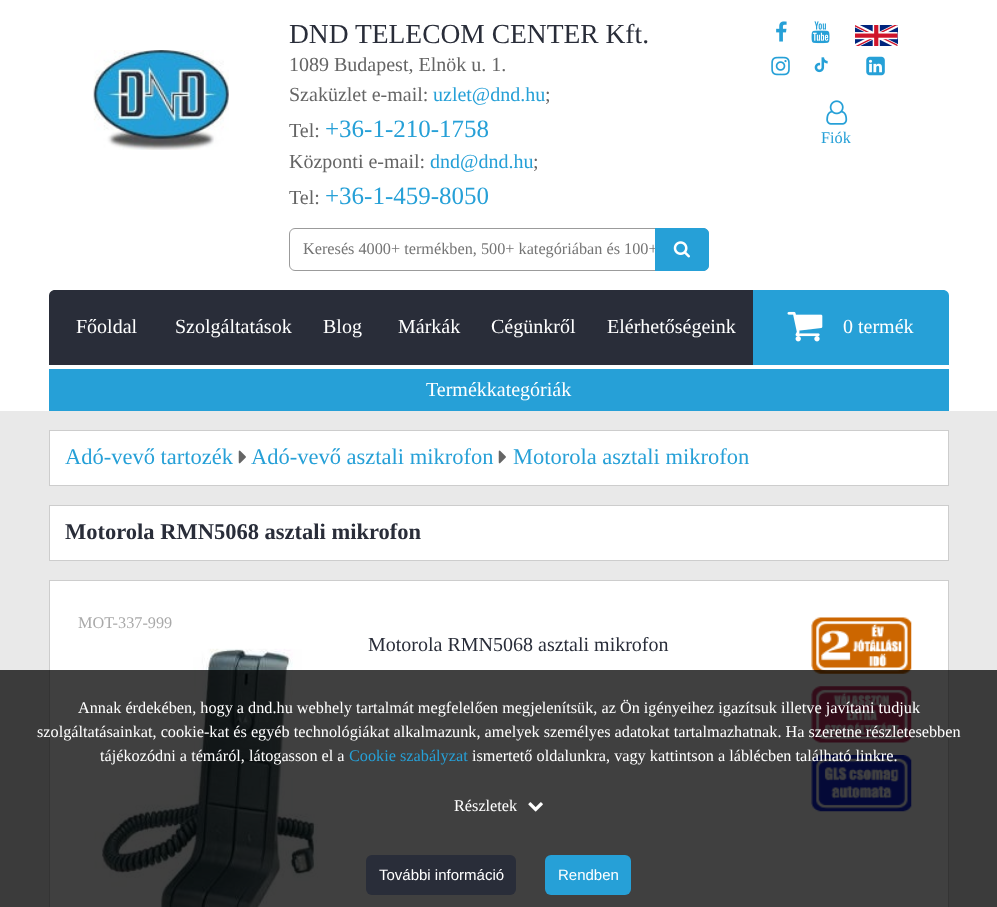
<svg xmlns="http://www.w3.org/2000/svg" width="997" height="907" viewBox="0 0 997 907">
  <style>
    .t1 { font: 27.5px Liberation Serif; fill: #292d39; }
    .t2 { font: 20px Liberation Serif; fill: #656565; }
    .t3 { font: 20px Liberation Serif; fill: #26a0d7; }
    .t4 { font: 25px Liberation Serif; fill: #26a0d7; }
    .t5 { font: 16.25px Liberation Serif; fill: #26a0d7; }
    .t6 { font: 16.25px Liberation Serif; fill: #757575; }
    .t7 { font: 20px Liberation Serif; fill: #fff; }
    .t8 { font: 22.5px Liberation Serif; fill: #26a0d7; }
    .t9 { font: bold 22.5px Liberation Serif; fill: #292d39; }
    .t10 { font: 16.25px Liberation Serif; fill: #a9a9a9; }
    .t11 { font: 20px Liberation Serif; fill: #292d39; }
    .t12 { font: 16.25px Liberation Serif; fill: #fff; }
    .t13 { font: 15px Liberation Sans; fill: #fff; }
  </style>
  <rect width="100%" height="100%" fill="#fff"/>
  <image x="93" y="50" width="136" height="100" href="images/1.png"/>
  <text x="289" y="43" class="t1">DND TELECOM CENTER Kft.</text>
  <text x="289" y="71" class="t2">1089 Budapest, Elnök u. 1.</text>
  <text x="289" y="101" class="t2">Szaküzlet e-mail:</text>
  <text x="433" y="101" class="t3">uzlet@dnd.hu</text>
  <text x="545" y="101" class="t2">;</text>
  <text x="289" y="137" class="t2">Tel:</text>
  <text x="325" y="137" class="t4">+36-1-210-1758</text>
  <text x="289" y="168" class="t2">Központi e-mail:</text>
  <text x="430" y="168" class="t3">dnd@dnd.hu</text>
  <text x="533" y="168" class="t2">;</text>
  <text x="289" y="204" class="t2">Tel:</text>
  <text x="325" y="204" class="t4">+36-1-459-8050</text>
  <image x="776" y="21" width="11" height="21" href="images/2.png"/>
  <image x="811" y="21" width="19" height="23" href="images/3.png"/>
  <image x="855" y="25" width="43" height="21" href="images/4.png"/>
  <image x="771" y="56" width="19" height="20" href="images/5.png"/>
  <image x="814" y="57" width="14" height="16" href="images/6.png"/>
  <image x="866" y="56" width="19" height="20" href="images/7.png"/>
  <image x="826" y="100" width="22" height="25" href="images/8.png"/>
  <text x="821" y="143" class="t5">Fiók</text>
  <rect x="289.5" y="228.5" width="419" height="42" rx="5.5" fill="none" stroke="#9b9b9b"/>
  <text x="303" y="254" class="t6">Keresés 4000+ termékben, 500+ kategóriában és 100+</text>
  <path d="M655 228H703C706.5 228 709 230.5 709 234V265C709 268.5 706.5 271 703 271H655Z" fill="#26a0d7"/>
  <image x="673" y="241" width="17" height="17" href="images/9.png"/>
  <path d="M55 290H164V365H49V296C49 292.5 51.5 290 55 290Z" fill="#292d39"/>
  <text x="76" y="333" class="t7">Főoldal</text>
  <rect x="164" y="290" width="589" height="75" fill="#292d39"/>
  <text x="175" y="333" class="t7">Szolgáltatások</text>
  <text x="323" y="333" class="t7">Blog</text>
  <text x="398" y="333" class="t7">Márkák</text>
  <text x="491" y="333" class="t7">Cégünkről</text>
  <text x="607" y="333" class="t7">Elérhetőségeink</text>
  <path d="M753 290H943C946.5 290 949 292.5 949 296V365H753Z" fill="#26a0d7"/>
  <image x="787" y="311" width="36" height="31" href="images/10.png"/>
  <text x="843" y="333" class="t7">0 termék</text>
  <rect x="49" y="369" width="900" height="42" fill="#26a0d7"/>
  <text x="426" y="396" class="t7">Termékkategóriák</text>
  <rect x="0" y="411" width="997" height="496" fill="#e9e9e9"/>
  <rect x="49.5" y="430.5" width="899" height="55" fill="#fff" stroke="#cdcdcd"/>
  <text x="65" y="464" class="t8">Adó-vevő tartozék</text>
  <image x="238" y="450" width="8" height="14" href="images/11.png"/>
  <text x="251" y="464" class="t8">Adó-vevő asztali mikrofon</text>
  <image x="498" y="450" width="8" height="14" href="images/11.png"/>
  <text x="513" y="464" class="t8">Motorola asztali mikrofon</text>
  <rect x="49.5" y="505.5" width="899" height="55" fill="#fff" stroke="#cdcdcd"/>
  <text x="65" y="539" class="t9">Motorola RMN5068 asztali mikrofon</text>
  <rect x="49.5" y="580.5" width="899" height="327" fill="#fff" stroke="#cdcdcd"/>
  <text x="78" y="628" class="t10">MOT-337-999</text>
  <image x="94" y="648" width="224" height="259" href="images/12.png"/>
  <text x="368" y="651" class="t11">Motorola RMN5068 asztali mikrofon</text>
  <image x="811" y="617" width="101" height="57" href="images/13.png"/>
  <image x="811" y="686" width="101" height="57" href="images/14.png"/>
  <image x="811" y="755" width="101" height="57" href="images/15.png"/>
  <rect x="0" y="670" width="997" height="237" fill="#000000bf"/>
  <text x="78" y="713" class="t12">Annak érdekében, hogy a dnd.hu webhely tartalmát megfelelően megjelenítsük, az Ön igényeihez igazítsuk illetve javítani tudjuk</text>
  <text x="37" y="737" class="t12">szolgáltatásainkat, cookie-kat és egyéb technológiákat alkalmazunk, amelyek személyes adatokat tartalmazhatnak. Ha szeretne részletesebben</text>
  <text x="100" y="761" class="t12">tájékozódni a témáról, látogasson el a</text>
  <text x="349" y="761" class="t5">Cookie szabályzat</text>
  <text x="472" y="761" class="t12">ismertető oldalunkra, vagy kattintson a láblécben található linkre.</text>
  <text x="454" y="811" class="t12">Részletek</text>
  <image x="528" y="802" width="15" height="10" href="images/16.png"/>
  <rect x="366" y="855" width="150" height="40" rx="6" fill="#292d39"/>
  <text x="379" y="880" class="t13">További információ</text>
  <rect x="545" y="855" width="86" height="40" rx="6" fill="#26a0d7"/>
  <text x="558" y="880" class="t13">Rendben</text>
</svg>
